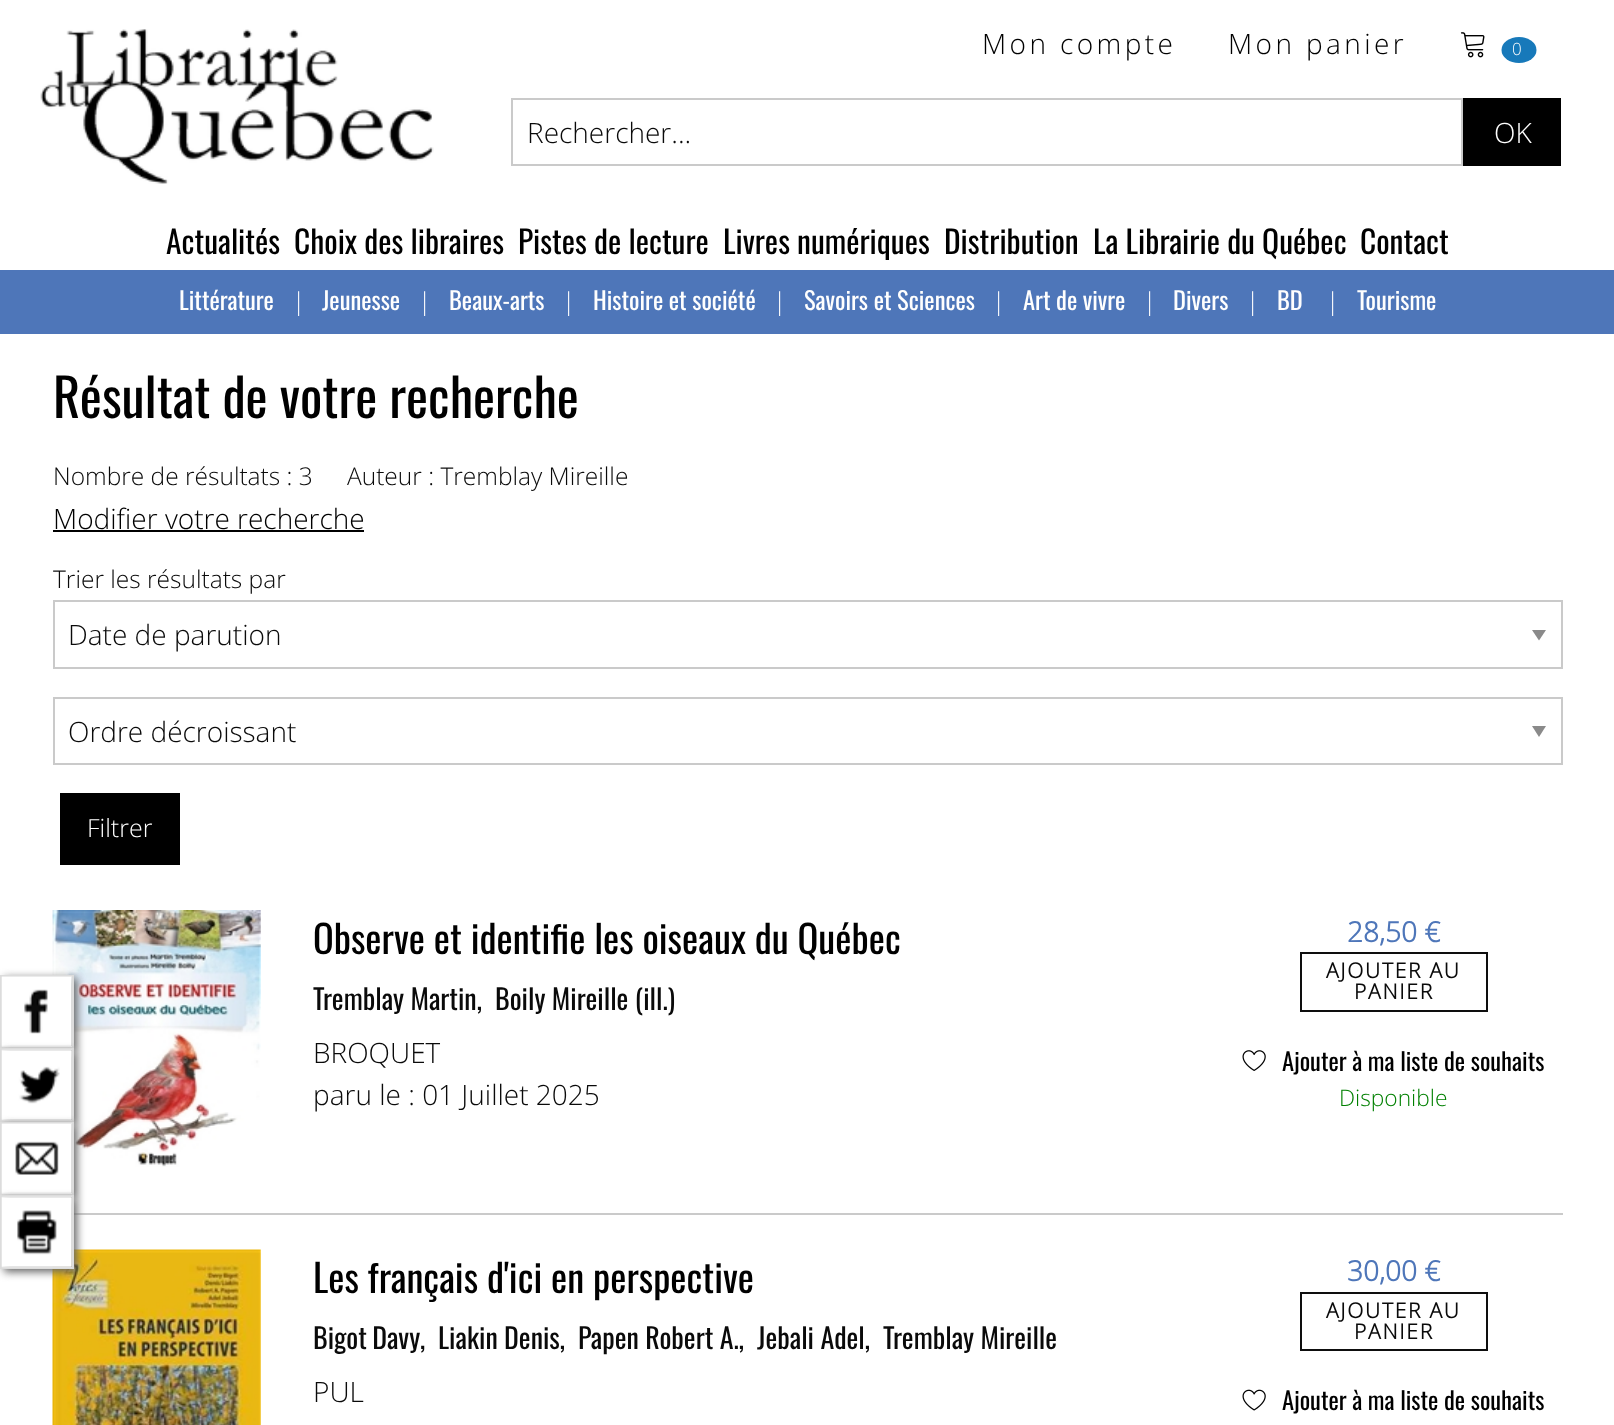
<svg xmlns="http://www.w3.org/2000/svg" width="1614" height="1425" viewBox="0 0 1614 1425">
  <style>
    .t1 { font: 300 28px Open Sans; letter-spacing: 3.4px; fill: #000; }
    .t2 { font: 300 17px Open Sans; letter-spacing: 3.4px; fill: #fefefe; }
    .t3 { font: 300 28px Open Sans; fill: #0a0a0a; }
    .t4 { font: 300 28px Open Sans; fill: #fefefe; }
    .t5 { font: 31.5px Oswald; fill: #000; }
    .t6 { font: 24.5px Oswald; fill: #fefefe; }
    .t7 { font: 300 24.5px Open Sans; fill: #fefefe; }
    .t8 { font: 52.5px Oswald; fill: #000; }
    .t9 { font: 300 24.5px Open Sans; fill: #0a0a0a; }
    .t10 { font: 300 28px Open Sans; fill: #000; }
    .t11 { font: 300 25px Open Sans; fill: #fefefe; }
    .t12 { font: 38.5px Oswald; fill: #000; }
    .t13 { font: 28px Oswald; fill: #0a0a0a; }
    .t14 { font: bold 28px Open Sans; fill: #4e76b9; }
    .t15 { font: bold 21px Open Sans; letter-spacing: 1.75px; fill: #0a0a0a; }
    .t16 { font: 24.5px Oswald; fill: #000; }
    .t17 { font: 300 22.75px Open Sans; fill: #008000; }
  </style>
  <rect width="100%" height="100%" fill="#fff"/>
  <image x="52" y="910" width="209" height="257" href="images/7.png"/>
  <rect x="4" y="978" width="73" height="74" fill="#656565" filter="blur(4.5px)"/>
  <rect x="1" y="976" width="72" height="71" fill="none" stroke="#dcdcdc" stroke-width="2"/>
  <image x="1" y="976" width="71" height="71" href="images/1.png"/>
  <rect x="4" y="1052" width="73" height="73" fill="#656565" filter="blur(4.5px)"/>
  <rect x="1" y="1049" width="72" height="72" fill="none" stroke="#dcdcdc" stroke-width="2"/>
  <image x="1" y="1049" width="71" height="72" href="images/2.png"/>
  <rect x="71" y="1213" width="1492" height="2" fill="#cacaca"/>
  <rect x="4" y="1125" width="73" height="74" fill="#656565" filter="blur(4.5px)"/>
  <rect x="1" y="1123" width="72" height="71" fill="none" stroke="#dcdcdc" stroke-width="2"/>
  <image x="1" y="1123" width="71" height="71" href="images/3.png"/>
  <image x="52" y="1249" width="209" height="176" href="images/9.png"/>
  <rect x="4" y="1199" width="73" height="73" fill="#656565" filter="blur(4.5px)"/>
  <rect x="1" y="1196" width="72" height="72" fill="none" stroke="#dcdcdc" stroke-width="2"/>
  <image x="1" y="1196" width="71" height="72" href="images/4.png"/>
  <image x="40" y="29" width="394" height="155" href="images/5.png"/>
  <text x="982" y="54" class="t1">Mon compte</text>
  <text x="1228" y="54" class="t1">Mon panier</text>
  <image x="1460" y="32" width="25" height="26" href="images/6.png"/>
  <ellipse cx="1519" cy="50" rx="17.5" ry="13" fill="#1779ba"/>
  <text x="1512" y="55" class="t2">0</text>
  <rect x="512" y="99" width="950" height="66" fill="none" stroke="#cacaca" stroke-width="2"/>
  <text x="527" y="143" class="t3">Rechercher...</text>
  <rect x="1463" y="98" width="98" height="68" fill="#000"/>
  <text x="1494" y="143" class="t4">OK</text>
  <text x="166" y="254" class="t5">Actualités</text>
  <text x="294" y="254" class="t5">Choix des libraires</text>
  <text x="518" y="254" class="t5">Pistes de lecture</text>
  <text x="723" y="254" class="t5">Livres numériques</text>
  <text x="944" y="254" class="t5">Distribution</text>
  <text x="1093" y="254" class="t5">La Librairie du Québec</text>
  <text x="1360" y="254" class="t5">Contact</text>
  <rect x="0" y="270" width="1614" height="64" fill="#4e76b9"/>
  <text x="179" y="310" class="t6">Littérature</text>
  <text x="292" y="310" class="t7">|</text>
  <text x="322" y="310" class="t6">Jeunesse</text>
  <text x="418" y="310" class="t7">|</text>
  <text x="449" y="310" class="t6">Beaux-arts</text>
  <text x="562" y="310" class="t7">|</text>
  <text x="593" y="310" class="t6">Histoire et société</text>
  <text x="773" y="310" class="t7">|</text>
  <text x="804" y="310" class="t6">Savoirs et Sciences</text>
  <text x="992" y="310" class="t7">|</text>
  <text x="1023" y="310" class="t6">Art de vivre</text>
  <text x="1143" y="310" class="t7">|</text>
  <text x="1173" y="310" class="t6">Divers</text>
  <text x="1246" y="310" class="t7">|</text>
  <text x="1277" y="310" class="t6">BD</text>
  <text x="1326" y="310" class="t7">|</text>
  <text x="1357" y="310" class="t6">Tourisme</text>
  <text x="53" y="418" class="t8">Résultat de votre recherche</text>
  <text x="53" y="485" class="t9">Nombre de résultats : 3</text>
  <text x="347" y="485" class="t9">Auteur : Tremblay Mireille</text>
  <text x="53" y="529" class="t10">Modifier votre recherche</text>
  <rect x="53" y="530" width="311" height="2" fill="#000"/>
  <text x="53" y="588" class="t9">Trier les résultats par</text>
  <path d="M1532 630H1546L1539 640.5Z" fill="#8a8a8a"/>
  <rect x="54" y="601" width="1508" height="67" fill="none" stroke="#cacaca" stroke-width="2"/>
  <text x="68" y="645" class="t3">Date de parution</text>
  <path d="M1532 726H1546L1539 737Z" fill="#8a8a8a"/>
  <rect x="54" y="698" width="1508" height="66" fill="none" stroke="#cacaca" stroke-width="2"/>
  <text x="68" y="742" class="t3">Ordre décroissant</text>
  <rect x="60" y="793" width="120" height="72" fill="#000"/>
  <text x="87" y="837" class="t11">Filtrer</text>
  <text x="313" y="954" class="t12">Observe et identifie les oiseaux du Québec</text>
  <text x="313" y="1010" class="t13">Tremblay Martin,</text>
  <text x="495" y="1010" class="t13">Boily Mireille (ill.)</text>
  <text x="313" y="1063" class="t3">BROQUET</text>
  <text x="313" y="1105" class="t3">paru le : 01 Juillet 2025</text>
  <text x="1347" y="942" class="t14">28,50 €</text>
  <rect x="1301" y="953" width="186" height="58" fill="none" stroke="#0e0e0e" stroke-width="2"/>
  <text x="1326" y="978" class="t15">AJOUTER AU</text>
  <text x="1354" y="999" class="t15">PANIER</text>
  <image x="1242" y="1050" width="24" height="21" href="images/8.png"/>
  <text x="1282" y="1071" class="t16">Ajouter à ma liste de souhaits</text>
  <text x="1339" y="1106" class="t17">Disponible</text>
  <text x="313" y="1293" class="t12">Les français d'ici en perspective</text>
  <text x="313" y="1349" word-spacing="-1" class="t13">Bigot Davy</text>
  <text x="420" y="1349" class="t13">,</text>
  <text x="438" y="1349" class="t13">Liakin Denis,</text>
  <text x="578" y="1349" class="t13">Papen Robert A.,</text>
  <text x="757" y="1349" class="t13">Jebali Adel,</text>
  <text x="883" y="1349" class="t13">Tremblay Mireille</text>
  <text x="313" y="1402" class="t3">PUL</text>
  <text x="1347" y="1281" class="t14">30,00 €</text>
  <rect x="1301" y="1293" width="186" height="57" fill="none" stroke="#0e0e0e" stroke-width="2"/>
  <text x="1326" y="1318" class="t15">AJOUTER AU</text>
  <text x="1354" y="1339" class="t15">PANIER</text>
  <image x="1242" y="1389" width="24" height="22" href="images/10.png"/>
  <text x="1282" y="1410" class="t16">Ajouter à ma liste de souhaits</text>
</svg>
